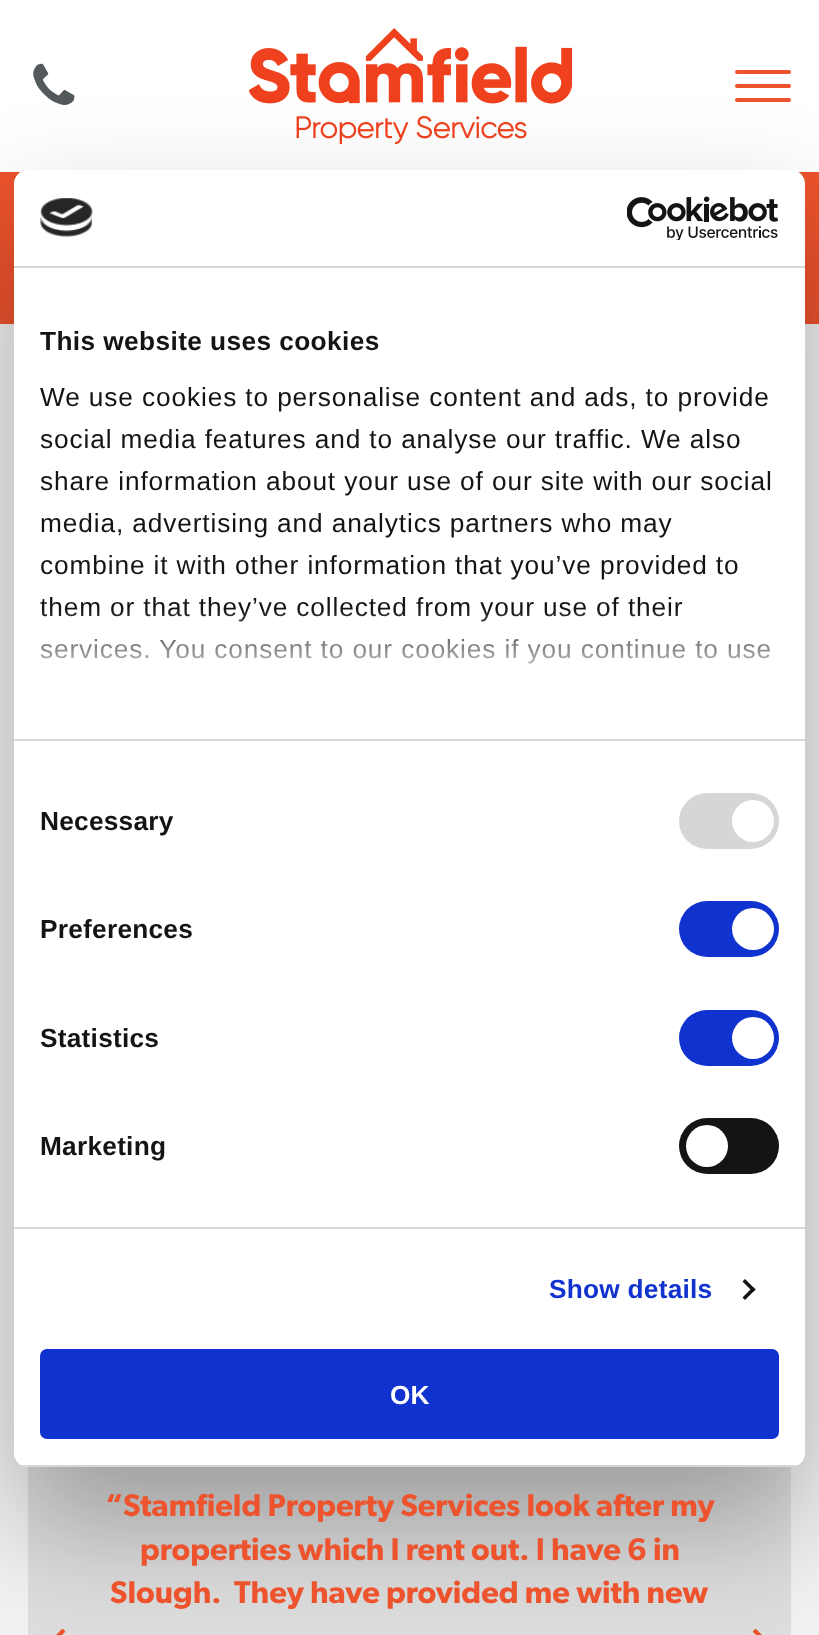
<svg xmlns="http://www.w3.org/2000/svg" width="819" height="1635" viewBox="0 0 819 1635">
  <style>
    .t1 { font: bold 26.25px Liberation Sans; letter-spacing: 0.4px; fill: #141414; }
    .t2 { font: 26.25px Liberation Sans; letter-spacing: 0.88px; fill: #141414; }
    .t3 { font: bold 26.25px Liberation Sans; letter-spacing: 0.25px; fill: #141414; }
    .t4 { font: bold 26.25px Liberation Sans; letter-spacing: 0.25px; fill: #1032cf; }
    .t5 { font: bold 26.25px Liberation Sans; fill: #fff; }
    .t6 { font: 600 31.5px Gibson; fill: #ed532d; }
  </style>
  <defs>
    <linearGradient id="g1" gradientUnits="userSpaceOnUse" x1="409" y1="172" x2="410" y2="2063"><stop offset="0" stop-color="#d9d9d9"/><stop offset="0.03" stop-color="#f2f2f2"/></linearGradient>
    <linearGradient id="g2" gradientUnits="userSpaceOnUse" x1="398" y1="739" x2="398" y2="608"><stop offset="0" stop-color="#fff"/><stop offset="0.5" stop-color="#fff" stop-opacity="0.8"/><stop offset="1" stop-color="#fff" stop-opacity="0"/></linearGradient>
    <clipPath id="clip1"><rect x="14" y="170" width="791" height="1297" rx="14"/></clipPath>
  </defs>
  <rect width="100%" height="100%" fill="#fff"/>
  <image x="33" y="63" width="42" height="42" href="images/1.png"/>
  <image x="249" y="28" width="323" height="116" href="images/2.png"/>
  <rect x="735" y="70" width="56" height="4" rx="2" fill="#ed532d"/>
  <rect x="735" y="84" width="56" height="4" rx="2" fill="#ed532d"/>
  <rect x="735" y="98" width="56" height="4" rx="2" fill="#ed532d"/>
  <rect x="0" y="324" width="819" height="1311" fill="url(#g1)"/>
  <rect x="0" y="172" width="819" height="152" fill="#ed532d"/>
  <rect x="28" y="1467" width="763" height="168" fill="#dedede"/>
  <image x="56" y="1628" width="10" height="7" href="images/5.png"/>
  <image x="752" y="1628" width="10" height="7" href="images/6.png"/>
  <rect x="14" y="226" width="791" height="1297" rx="14" fill="#0000004d" filter="blur(59.5px)"/>
  <rect x="14" y="170" width="791" height="1297" rx="14" fill="#fff"/>
  <rect x="14" y="266" width="791" height="2" fill="#d6d6d6"/>
  <image x="40" y="198" width="53" height="39" href="images/3.png"/>
  <image x="627" y="196" width="152" height="44" href="images/4.png"/>
  <rect x="14" y="739" width="791" height="2" fill="#d6d6d6"/>
  <text x="40" y="350" class="t1">This website uses cookies</text>
  <text x="40" y="406" class="t2">We use cookies to personalise content and ads, to provide</text>
  <text x="40" y="448" class="t2">social media features and to analyse our traffic. We also</text>
  <text x="40" y="490" class="t2">share information about your use of our site with our social</text>
  <text x="40" y="532" class="t2">media, advertising and analytics partners who may</text>
  <text x="40" y="574" class="t2">combine it with other information that you’ve provided to</text>
  <text x="40" y="616" class="t2">them or that they’ve collected from your use of their</text>
  <text x="40" y="658" class="t2">services. You consent to our cookies if you continue to use</text>
  <rect x="41" y="610" width="729" height="54" fill="url(#g2)"/>
  <rect x="14" y="1227" width="791" height="2" fill="#d6d6d6"/>
  <text x="40" y="830" class="t3">Necessary</text>
  <rect x="679" y="793" width="100" height="56" rx="28" fill="#d6d6d6"/>
  <circle cx="753" cy="821" r="21" fill="#fff"/>
  <text x="40" y="938" class="t3">Preferences</text>
  <rect x="679" y="901" width="100" height="56" rx="28" fill="#1032cf"/>
  <circle cx="753" cy="929" r="21" fill="#fff"/>
  <text x="40" y="1047" class="t3">Statistics</text>
  <rect x="679" y="1010" width="100" height="56" rx="28" fill="#1032cf"/>
  <circle cx="753" cy="1038" r="21" fill="#fff"/>
  <text x="40" y="1155" class="t3">Marketing</text>
  <rect x="679" y="1118" width="100" height="56" rx="28" fill="#141414"/>
  <circle cx="707" cy="1146" r="21" fill="#fff"/>
  <text x="549" y="1298" class="t4">Show details</text>
  <path d="M745 1279L755.5 1289.5L753 1292L742.5 1281.5Z" fill="#141414"/>
  <path d="M753 1287L755.5 1289.5L745 1300L742.5 1297.5Z" fill="#141414"/>
  <g clip-path="url(#clip1)">
    <rect x="14" y="1465" width="791" height="2" fill="#d6d6d6"/>
  </g>
  <rect x="42" y="1351" width="735" height="86" rx="5" fill="#1032cf" stroke="#1032cf" stroke-width="4"/>
  <text x="390" y="1404" class="t5">OK</text>
  <text x="105" y="1516" class="t6">“Stamfield Property Services look after my</text>
  <text x="140" y="1560" class="t6">properties which I rent out. I have 6 in</text>
  <text x="110" y="1603" class="t6" xml:space="preserve">Slough.  They have provided me with new</text>
</svg>
